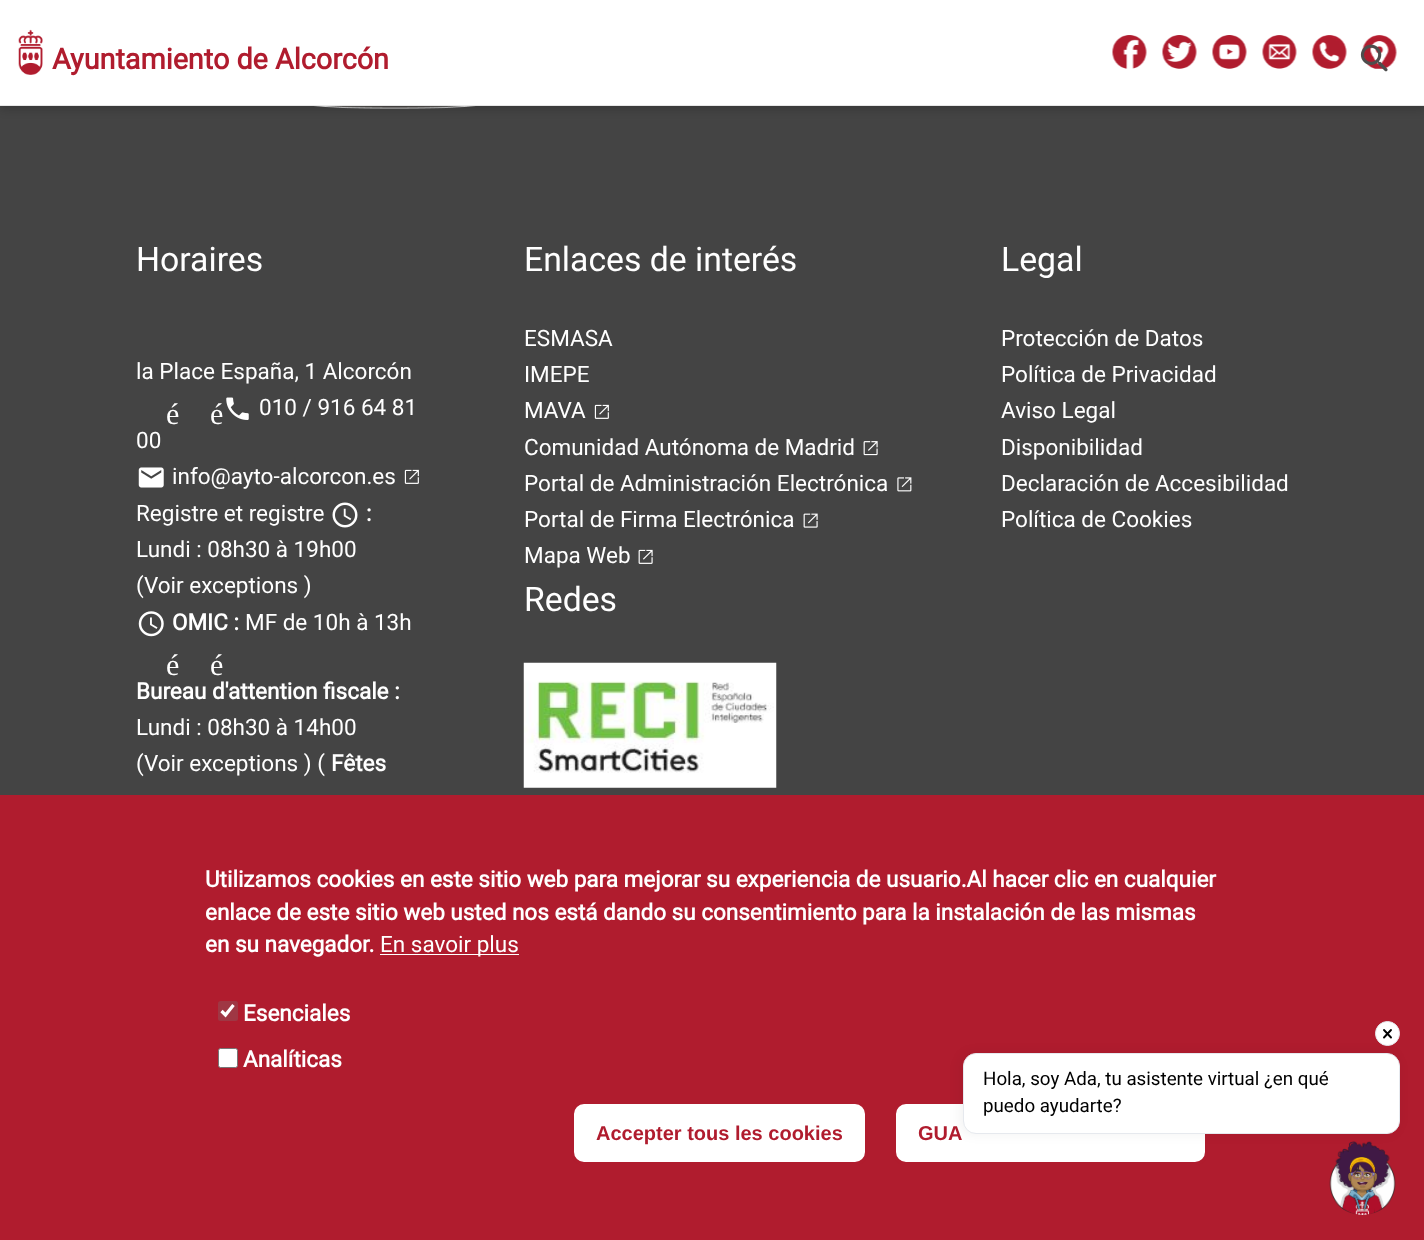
<svg xmlns="http://www.w3.org/2000/svg" width="1424" height="1240" viewBox="0 0 1424 1240">
  <style>
    .t1 { font: bold 28.75px Roboto; fill: #b01c2e; }
    .t2 { font: 33.75px Roboto; fill: #fff; }
    .t3 { font: 22.5px Roboto; fill: #fff; }
    .t4 { font: 30px Liberation Serif; fill: #fff; }
    .t5 { font: bold 22.5px Roboto; fill: #fff; }
    .t6 { font: bold 20px Liberation Sans; fill: #b01c2e; }
    .t7 { font: 18.75px Roboto; fill: #000; }
  </style>
  <rect width="100%" height="100%" fill="#444"/>
  <image x="314" y="106" width="162" height="3" href="images/9.png"/>
  <rect x="0" y="4" width="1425" height="106" fill="#00000029" filter="blur(4px)"/>
  <rect x="0" y="0" width="1424" height="105" fill="#fff"/>
  <rect x="0" y="105" width="1424" height="1" fill="#e7e7e7"/>
  <image x="18" y="29" width="25" height="46" href="images/1.png"/>
  <image x="1112" y="35" width="35" height="34" href="images/2.png"/>
  <image x="1162" y="35" width="35" height="34" href="images/3.png"/>
  <image x="1212" y="35" width="35" height="34" href="images/4.png"/>
  <image x="1262" y="35" width="35" height="34" href="images/5.png"/>
  <image x="1312" y="35" width="35" height="34" href="images/6.png"/>
  <image x="1362" y="35" width="35" height="34" href="images/7.png"/>
  <text x="52" y="69" class="t1">Ayuntamiento de Alcorcón</text>
  <image x="1360" y="44" width="28" height="28" href="images/8.png"/>
  <text x="136" y="271" class="t2">Horaires</text>
  <text x="136" y="379" class="t3">la Place España, 1 Alcorcón</text>
  <text x="166" y="424" class="t4">é</text>
  <text x="210" y="424" class="t4">é</text>
  <image x="226" y="397" width="23" height="23" href="images/10.png"/>
  <text x="259" y="415" class="t3">010 / 916 64 81</text>
  <text x="136" y="448" class="t3">00</text>
  <image x="138" y="467" width="26" height="21" href="images/11.png"/>
  <text x="172" y="484" class="t3">info@ayto-alcorcon.es</text>
  <image x="404" y="469" width="15" height="15" href="images/12.png"/>
  <text x="136" y="521" class="t3">Registre et registre</text>
  <image x="332" y="502" width="26" height="26" href="images/13.png"/>
  <text x="366" y="521" class="t5">:</text>
  <text x="136" y="557" class="t3">Lundi : 08h30 à 19h00</text>
  <text x="136" y="593" class="t3">(Voir exceptions )</text>
  <image x="138" y="611" width="26" height="26" href="images/14.png"/>
  <text x="172" y="630" class="t5">OMIC :</text>
  <text x="245" y="630" class="t3">MF de 10h à 13h</text>
  <text x="166" y="675" class="t4">é</text>
  <text x="210" y="675" class="t4">é</text>
  <text x="136" y="699" class="t5">Bureau d'attention fiscale :</text>
  <text x="136" y="735" class="t3">Lundi : 08h30 à 14h00</text>
  <text x="136" y="771" class="t3">(Voir exceptions ) (</text>
  <text x="331" y="771" class="t5">Fêtes</text>
  <text x="524" y="271" class="t2">Enlaces de interés</text>
  <text x="524" y="346" class="t3">ESMASA</text>
  <text x="524" y="382" class="t3">IMEPE</text>
  <text x="524" y="418" class="t3">MAVA</text>
  <image x="594" y="404" width="15" height="15" href="images/12.png"/>
  <text x="524" y="455" class="t3">Comunidad Autónoma de Madrid</text>
  <image x="863" y="441" width="15" height="15" href="images/15.png"/>
  <text x="524" y="491" class="t3">Portal de Administración Electrónica</text>
  <image x="897" y="477" width="15" height="15" href="images/16.png"/>
  <text x="524" y="527" class="t3">Portal de Firma Electrónica</text>
  <image x="803" y="513" width="15" height="15" href="images/17.png"/>
  <text x="524" y="563" class="t3">Mapa Web</text>
  <image x="638" y="549" width="15" height="15" href="images/18.png"/>
  <text x="524" y="611" class="t2">Redes</text>
  <image x="523" y="662" width="254" height="126" href="images/19.png"/>
  <text x="1001" y="271" class="t2">Legal</text>
  <text x="1001" y="346" class="t3">Protección de Datos</text>
  <text x="1001" y="382" class="t3">Política de Privacidad</text>
  <text x="1001" y="418" class="t3">Aviso Legal</text>
  <text x="1001" y="455" class="t3">Disponibilidad</text>
  <text x="1001" y="491" class="t3">Declaración de Accesibilidad</text>
  <text x="1001" y="527" class="t3">Política de Cookies</text>
  <rect x="0" y="795" width="1424" height="445" fill="#b01c2e"/>
  <text x="205" y="887" class="t5">Utilizamos cookies en este sitio web para mejorar su experiencia de usuario.Al hacer clic en cualquier</text>
  <text x="205" y="920" class="t5">enlace de este sitio web usted nos está dando su consentimiento para la instalación de las mismas</text>
  <text x="205" y="952" class="t5">en su navegador.</text>
  <rect x="380" y="954" width="139" height="1" fill="#fff"/>
  <text x="380" y="952" class="t3">En savoir plus</text>
  <rect x="218" y="1001" width="20" height="20" rx="2.5" fill="#9f3744"/>
  <path d="M221.5 1011L225.5 1015L233.5 1005" fill="none" stroke="#fff" stroke-width="3.2"/>
  <text x="243" y="1021" class="t5">Esenciales</text>
  <rect x="218.5" y="1048.5" width="19" height="19" rx="2" fill="#fff" stroke="#767676"/>
  <text x="243" y="1067" class="t5">Analíticas</text>
  <rect x="894.5" y="1102.5" width="312" height="61" rx="11.5" fill="#fff" stroke="#b01c2e" stroke-width="3"/>
  <text x="918" y="1140" class="t6">GUA</text>
  <rect x="572.5" y="1102.5" width="294" height="61" rx="11.5" fill="#fff" stroke="#b01c2e" stroke-width="3"/>
  <text x="596" y="1140" class="t6">Accepter tous les cookies</text>
  <image x="1329" y="1141" width="67" height="74" href="images/20.png"/>
  <rect x="960" y="1053" width="438" height="81" rx="13" fill="#0000000d" filter="blur(6px)"/>
  <circle cx="1387.5" cy="1033.5" r="12" fill="#fff" stroke="#e6e9ee"/>
  <path d="M1384 1037.5L1391 1030M1384 1030L1391 1037.5" fill="none" stroke="#000" stroke-width="1.9" stroke-linecap="round" stroke-linejoin="round"/>
  <rect x="963.5" y="1053.5" width="436" height="80" rx="12.5" fill="#fff" stroke="#e6e9ee"/>
  <text x="983" y="1085" class="t7">Hola, soy Ada, tu asistente virtual ¿en qué</text>
  <text x="983" y="1112" class="t7">puedo ayudarte?</text>
</svg>
